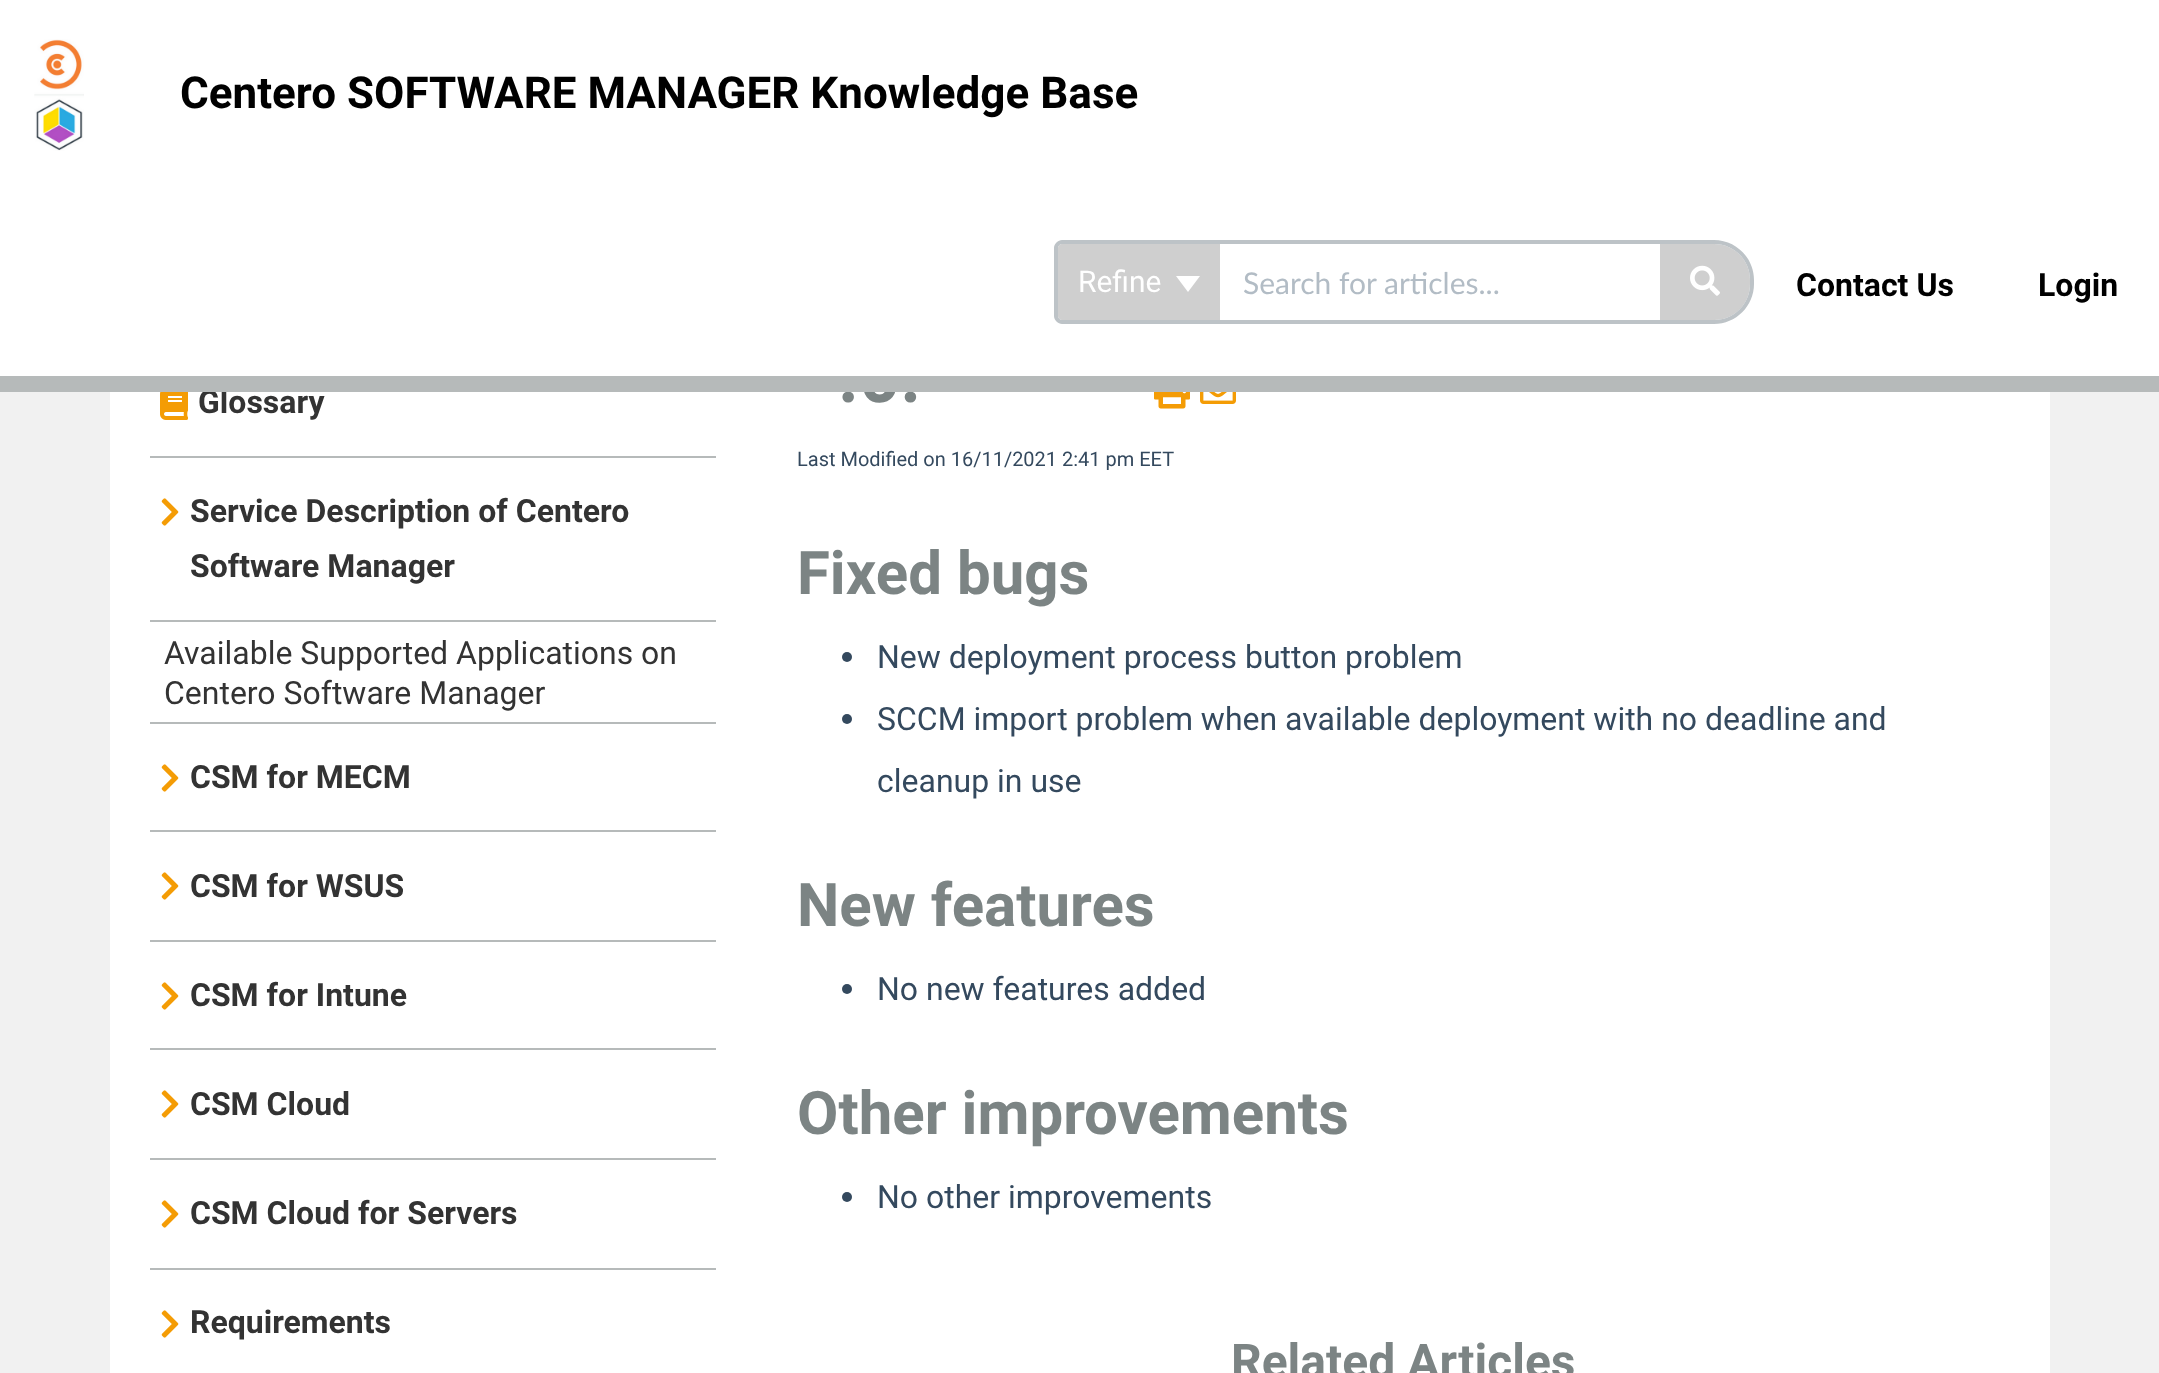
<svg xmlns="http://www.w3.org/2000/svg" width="2159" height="1373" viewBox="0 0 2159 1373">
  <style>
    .t1 { font: bold 72px Roboto; fill: #7c8484; }
    .t2 { font: bold 32px Roboto; fill: #333; }
    .t3 { font: bold 44px Roboto; fill: #000; }
    .t4 { font: 30px Roboto; fill: #fff; }
    .t5 { font: 30px Lato; fill: #b2bcc5; }
    .t6 { font: bold 32px Roboto; fill: #000; }
    .t7 { font: 32px Roboto; fill: #333; }
    .t8 { font: 20px Roboto; fill: #34495e; }
    .t9 { font: bold 60px Roboto; fill: #7c8484; }
    .t10 { font: 32px Roboto; fill: #34495e; }
    .t11 { font: bold 48px Roboto; fill: #7c8484; }
  </style>
  <rect width="100%" height="100%" fill="#f1f1f1"/>
  <rect x="110" y="392" width="1940" height="981" fill="#fff"/>
  <text x="838" y="402" class="t1">.0.</text>
  <rect x="0" y="0" width="2159" height="376" fill="#fff"/>
  <text x="198" y="413" class="t2">Glossary</text>
  <rect x="0" y="376" width="2159" height="16" fill="#b6baba"/>
  <image x="34" y="39" width="50" height="112" href="images/1.png"/>
  <text x="180" y="108" class="t3">Centero SOFTWARE MANAGER Knowledge Base</text>
  <rect x="1216" y="242" width="448" height="80" fill="none" stroke="#bdc3c7" stroke-width="4"/>
  <path d="M1062 244H1220V320H1062C1060 320 1058 318 1058 316V248C1058 246 1060 244 1062 244Z" fill="#cfcfcf"/>
  <path d="M1062 240H1220V324H1062C1058 324 1054 320 1054 316V248C1054 244 1058 240 1062 240ZM1062 244H1220V320H1062C1060 320 1058 318 1058 316V248C1058 246 1060 244 1062 244Z" fill="#bdc3c7" fill-rule="evenodd"/>
  <text x="1078" y="292" class="t4">Refine</text>
  <path d="M1176 276H1200L1188 292Z" fill="#fff"/>
  <text x="1243" y="294" class="t5">Search for articles...</text>
  <path d="M1660 244H1714C1734 244 1750 260 1750 280V284C1750 304 1734 320 1714 320H1660Z" fill="#cfcfcf"/>
  <path d="M1660 240H1714C1736 240 1754 258 1754 280V284C1754 306 1736 324 1714 324H1660ZM1660 244H1714C1734 244 1750 260 1750 280V284C1750 304 1734 320 1714 320H1660Z" fill="#bdc3c7" fill-rule="evenodd"/>
  <image x="1690" y="265" width="30" height="31" href="images/2.png"/>
  <text x="1796" y="296" class="t6">Contact Us</text>
  <text x="2038" y="296" class="t6">Login</text>
  <rect x="150" y="456" width="566" height="2" fill="#b6baba"/>
  <image x="160" y="392" width="28" height="28" href="images/3.png"/>
  <rect x="150" y="620" width="566" height="2" fill="#b6baba"/>
  <image x="161" y="498" width="18" height="28" href="images/4.png"/>
  <text x="190" y="522" class="t2">Service Description of Centero</text>
  <text x="190" y="577" class="t2">Software Manager</text>
  <rect x="150" y="722" width="566" height="2" fill="#b6baba"/>
  <text x="164" y="664" class="t7">Available Supported Applications on</text>
  <text x="164" y="704" class="t7">Centero Software Manager</text>
  <rect x="150" y="830" width="566" height="2" fill="#b6baba"/>
  <image x="161" y="764" width="18" height="28" href="images/4.png"/>
  <text x="190" y="788" class="t2">CSM for MECM</text>
  <rect x="150" y="940" width="566" height="2" fill="#b6baba"/>
  <image x="161" y="872" width="18" height="28" href="images/4.png"/>
  <text x="190" y="897" class="t2">CSM for WSUS</text>
  <rect x="150" y="1048" width="566" height="2" fill="#b6baba"/>
  <image x="161" y="982" width="18" height="28" href="images/4.png"/>
  <text x="190" y="1006" class="t2">CSM for Intune</text>
  <rect x="150" y="1158" width="566" height="2" fill="#b6baba"/>
  <image x="161" y="1090" width="18" height="28" href="images/4.png"/>
  <text x="190" y="1115" class="t2">CSM Cloud</text>
  <rect x="150" y="1268" width="566" height="2" fill="#b6baba"/>
  <image x="161" y="1200" width="18" height="28" href="images/4.png"/>
  <text x="190" y="1224" class="t2">CSM Cloud for Servers</text>
  <image x="161" y="1310" width="18" height="28" href="images/4.png"/>
  <text x="190" y="1333" class="t2">Requirements</text>
  <image x="1154" y="392" width="36" height="17" href="images/5.png"/>
  <image x="1200" y="392" width="36" height="12" href="images/6.png"/>
  <text x="797" y="466" class="t8">Last Modified on 16/11/2021 2:41 pm EET</text>
  <text x="797" y="594" class="t9">Fixed bugs</text>
  <circle cx="847" cy="657" r="5" fill="#34495e"/>
  <text x="877" y="668" class="t10">New deployment process button problem</text>
  <circle cx="847" cy="719" r="5" fill="#34495e"/>
  <text x="877" y="730" class="t10">SCCM import problem when available deployment with no deadline and</text>
  <text x="877" y="792" class="t10">cleanup in use</text>
  <text x="797" y="926" class="t9">New features</text>
  <circle cx="847" cy="989" r="5" fill="#34495e"/>
  <text x="877" y="1000" class="t10">No new features added</text>
  <text x="797" y="1134" class="t9">Other improvements</text>
  <circle cx="847" cy="1197" r="5" fill="#34495e"/>
  <text x="877" y="1208" class="t10">No other improvements</text>
  <text x="1231" y="1378" class="t11">Related Articles</text>
</svg>
